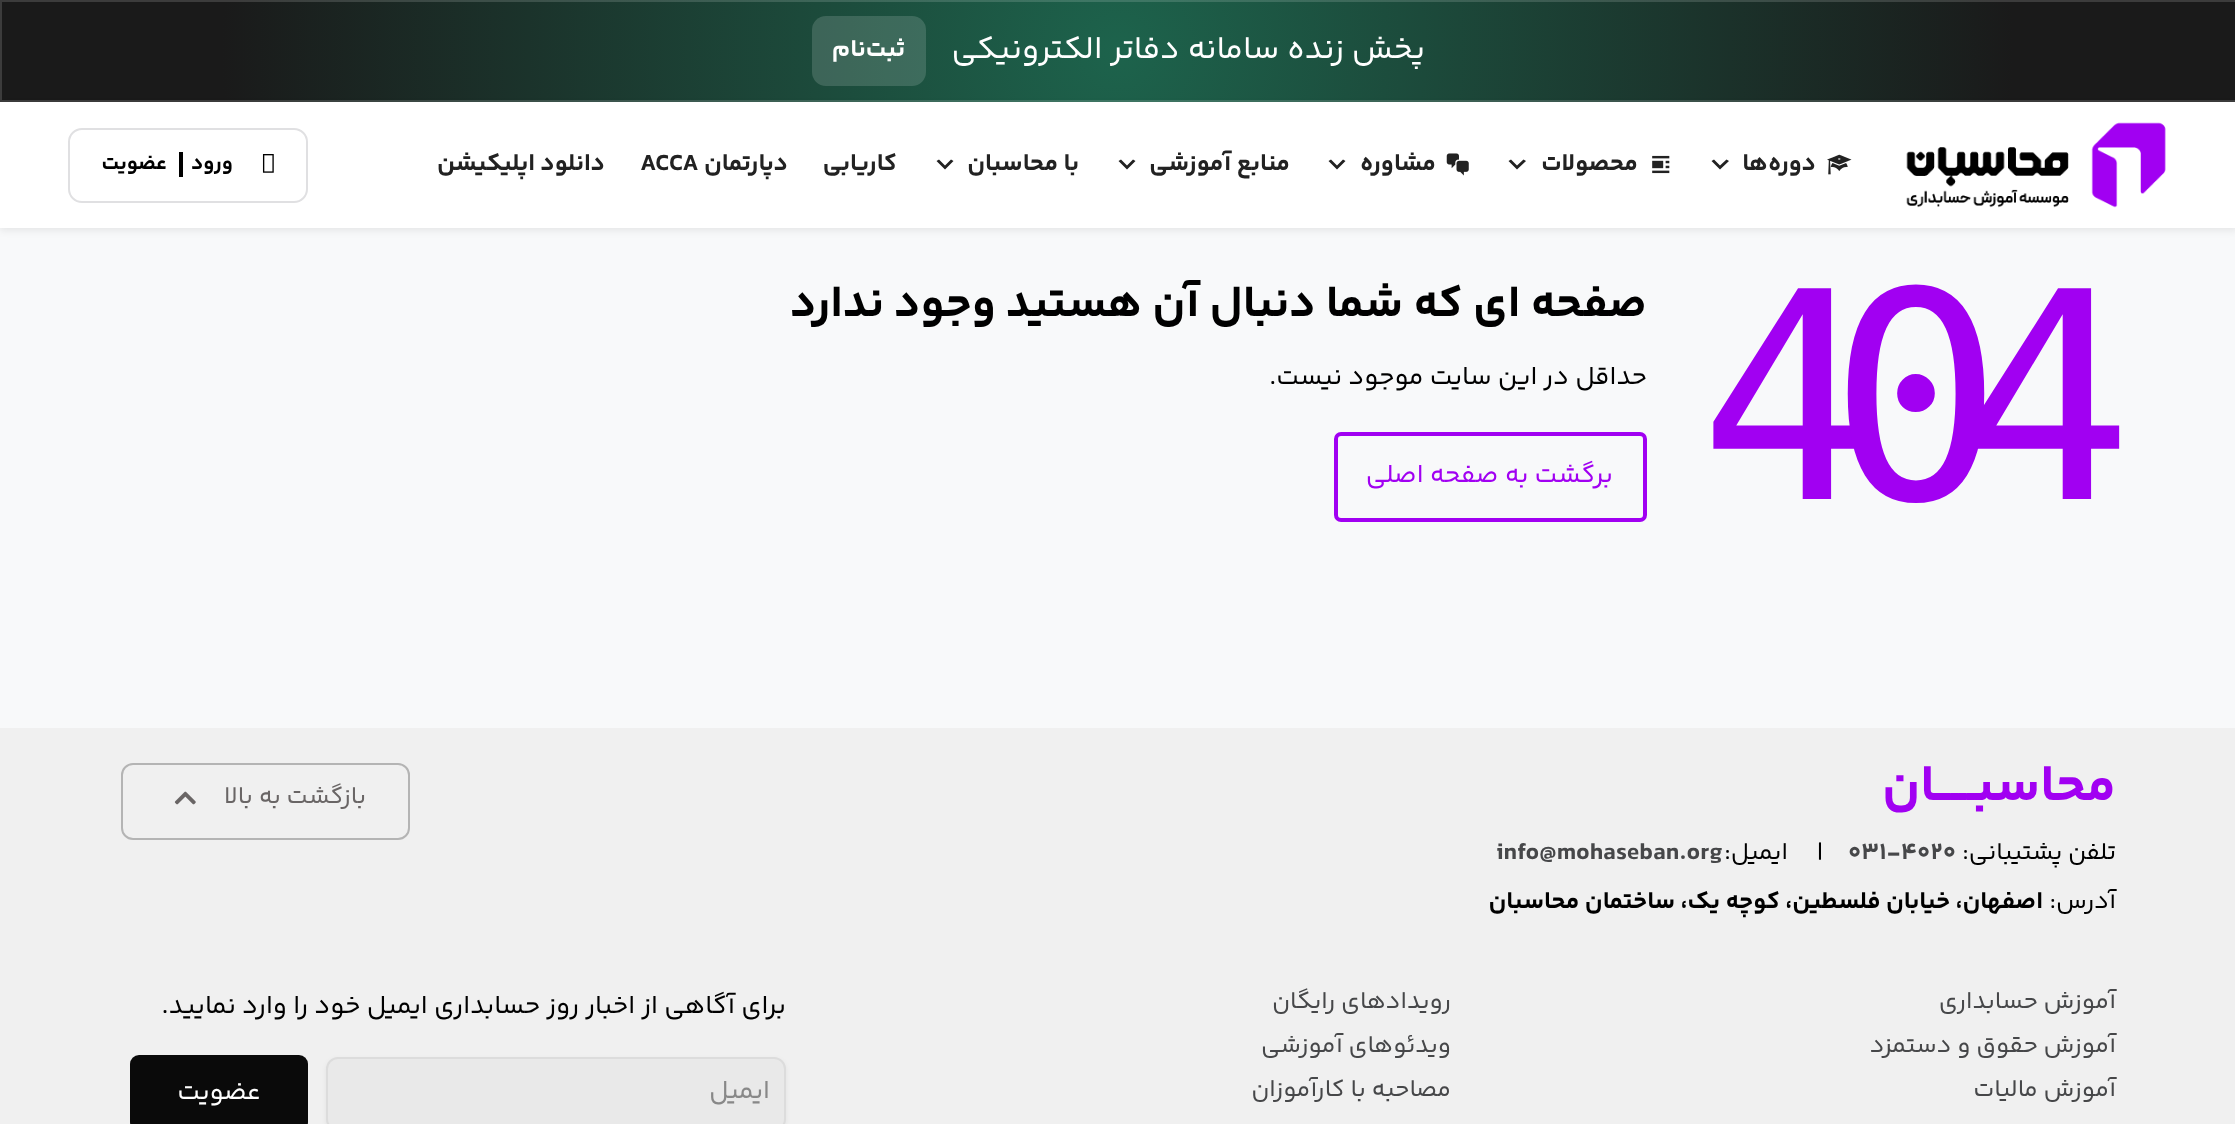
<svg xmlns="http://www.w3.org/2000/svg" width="2235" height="1124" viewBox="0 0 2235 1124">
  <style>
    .t1 { font: 32.25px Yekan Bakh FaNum; direction: rtl; fill: #fff; }
    .t2 { font: bold 24.5px Yekan Bakh FaNum; direction: rtl; fill: #fff; }
    .t3 { font: bold 24.5px Yekan Bakh FaNum; direction: rtl; fill: #222; }
    .t4 { font: bold 24.5px Yekan Bakh FaNum; fill: #222; }
    .t5 { font: bold 21px Yekan Bakh FaNum; direction: rtl; fill: #000; }
    .t6 { font: 289px DejaVu Sans Mono; letter-spacing: -44px; fill: #a100f2; }
    .t7 { font: bold 45.5px Yekan Bakh FaNum; direction: rtl; fill: #000; }
    .t8 { font: 26.25px Yekan Bakh FaNum; direction: rtl; fill: #000; }
    .t9 { font: 26.25px Yekan Bakh FaNum; direction: rtl; fill: #a100f2; }
    .t10 { font: bold 52.5px Yekan Bakh FaNum; direction: rtl; fill: #a100f2; }
    .t11 { font: 24.5px Yekan Bakh FaNum; direction: rtl; fill: #000; }
    .t12 { font: bold 24.5px Yekan Bakh FaNum; fill: #464749; }
    .t13 { font: bold 24.5px Yekan Bakh FaNum; direction: rtl; fill: #000; }
    .t14 { font: 24.5px Yekan Bakh FaNum; direction: rtl; fill: #696565; }
    .t15 { font: 24.5px Yekan Bakh FaNum; direction: rtl; fill: #464749; }
    .t16 { font: 26.25px Yekan Bakh FaNum; direction: rtl; fill: #888; }
    .t17 { font: 26.25px Yekan Bakh FaNum; direction: rtl; fill: #fff; }
  </style>
  <defs>
    <radialGradient id="g1" gradientUnits="userSpaceOnUse" cx="1118" cy="51" r="2239"><stop offset="0" stop-color="#1d634c"/><stop offset="0.4" stop-color="#1a1a1a"/></radialGradient>
  </defs>
  <rect width="100%" height="100%" fill="#fff"/>
  <rect x="0" y="0" width="2235" height="102" fill="url(#g1)"/>
  <rect x="1" y="1" width="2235" height="100" fill="none" stroke="#ffffff26" stroke-width="2"/>
  <text x="1425" y="58" class="t1">پخش زنده سامانه دفاتر الکترونیکی</text>
  <rect x="812" y="16" width="114" height="70" rx="14" fill="#ffffff26"/>
  <text x="905" y="56" class="t2">ثبت‌نام</text>
  <rect x="0" y="228" width="2235" height="500" fill="#f8f9fa"/>
  <rect x="0" y="105" width="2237" height="126" fill="#00000012" filter="blur(3.5px)"/>
  <rect x="0" y="102" width="2235" height="126" fill="#fff"/>
  <image x="1906" y="122" width="260" height="86" href="images/1.png"/>
  <image x="1827" y="154" width="25" height="21" href="images/2.png"/>
  <text x="1816" y="170" class="t3">دوره‌ها</text>
  <path d="M1714 159.5L1720 165.5L1726.5 159.5L1729 161L1720 169.5L1711.5 161Z" fill="#222"/>
  <image x="1652" y="155" width="18" height="19" href="images/3.png"/>
  <text x="1638" y="170" class="t3">محصولات</text>
  <path d="M1511 159.5L1517 165.5L1523.5 159.5L1526 161L1517 169.5L1508.5 161Z" fill="#222"/>
  <image x="1446" y="153" width="23" height="23" href="images/4.png"/>
  <text x="1436" y="170" class="t3">مشاوره</text>
  <path d="M1331 159.5L1337 165.5L1343 159.5L1345.5 161L1337 169.5L1328.5 161Z" fill="#222"/>
  <text x="1290" y="170" class="t3">منابع آموزشی</text>
  <path d="M1121 159.5L1127 165.5L1133 159.5L1135.5 161L1127 169.5L1118.5 161Z" fill="#222"/>
  <text x="1079" y="170" class="t3">با محاسبان</text>
  <path d="M939 159.5L945 165.5L951 159.5L953.5 161L945 169.5L936.5 161Z" fill="#222"/>
  <text x="897" y="170" class="t3">کاریابی</text>
  <text x="788" y="170" class="t3">دپارتمان</text>
  <text x="640" y="170" class="t4">ACCA</text>
  <text x="605" y="170" class="t3">دانلود اپلیکیشن</text>
  <rect x="69" y="129" width="238" height="73" rx="13" fill="none" stroke="#e0e0e2" stroke-width="2"/>
  <image x="262" y="154" width="12" height="19" href="images/5.png"/>
  <text x="233" y="169" class="t5">ورود</text>
  <rect x="179" y="152" width="4" height="25" fill="#000"/>
  <text x="167" y="169" class="t5">عضویت</text>
  <text x="1699" y="499" class="t6">404</text>
  <text x="1647" y="316" class="t7">صفحه ای که شما دنبال آن هستید وجود ندارد</text>
  <text x="1647" y="384" class="t8">حداقل در این سایت موجود نیست.</text>
  <rect x="1336" y="434" width="309" height="86" rx="5" fill="none" stroke="#a100f2" stroke-width="4"/>
  <text x="1613" y="482" class="t9">برگشت به صفحه اصلی</text>
  <rect x="0" y="728" width="2235" height="396" fill="#f0f0f0"/>
  <text x="2116" y="800" class="t10">محاسبـــــان</text>
  <text x="2116" y="859" class="t11">تلفن پشتیبانی:</text>
  <text x="1848" y="859" class="t12">031-4020</text>
  <text x="1823" y="859" class="t11" xml:space="preserve">|     ایمیل:</text>
  <text x="1496" y="859" class="t12">info@mohaseban.org</text>
  <text x="2116" y="908" class="t11">آدرس:</text>
  <text x="2043" y="908" class="t13">اصفهان، خیابان فلسطین، کوچه یک، ساختمان محاسبان</text>
  <rect x="122" y="764" width="287" height="75" rx="11" fill="none" stroke="#b4b4b4" stroke-width="2"/>
  <text x="366" y="803" class="t14">بازگشت به بالا</text>
  <image x="174" y="791" width="22" height="14" href="images/6.png"/>
  <text x="2116" y="1008" class="t15">آموزش حسابداری</text>
  <text x="2116" y="1052" class="t15">آموزش حقوق و دستمزد</text>
  <text x="2116" y="1096" class="t15">آموزش مالیات</text>
  <text x="1451" y="1008" class="t15">رویدادهای رایگان</text>
  <text x="1451" y="1052" class="t15">ویدئو‌های آموزشی</text>
  <text x="1451" y="1096" class="t15">مصاحبه با کارآموزان</text>
  <text x="786" y="1013" class="t8">برای آگاهی از اخبار روز حسابداری ایمیل خود را وارد نمایید.</text>
  <rect x="326" y="1059" width="460" height="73" rx="12" fill="#0000000f" filter="blur(2.5px)"/>
  <rect x="327" y="1058" width="458" height="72" rx="11" fill="#e9e9e9" stroke="#dcdcdc" stroke-width="2"/>
  <text x="770" y="1098" class="t16">ایمیل</text>
  <rect x="130" y="1055" width="178" height="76" rx="9" fill="#0a0a0a"/>
  <text x="261" y="1099" class="t17">عضویت</text>
</svg>
